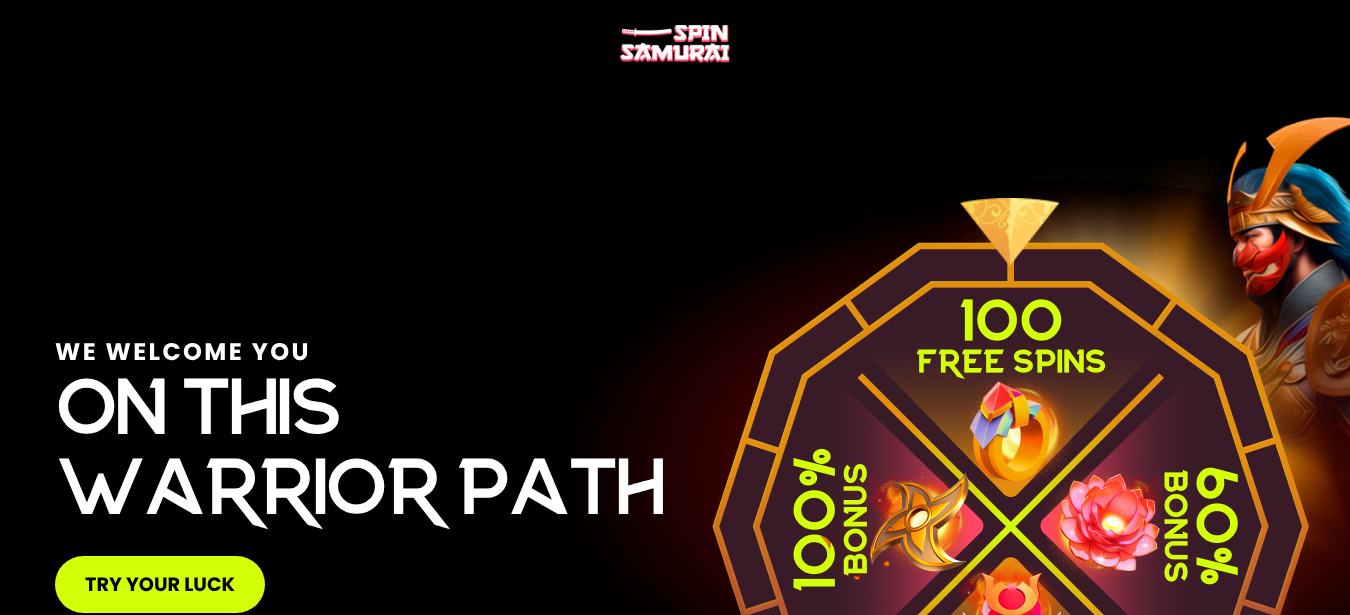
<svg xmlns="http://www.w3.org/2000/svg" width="1350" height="615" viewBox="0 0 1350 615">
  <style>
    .t1 { font: bold 24px Poppins; letter-spacing: 2.4px; fill: #fff; }
    .t2 { font: 80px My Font; letter-spacing: -4px; fill: #fff; }
    .t3 { font: bold 19.25px Poppins; fill: #000; }
  </style>
  <rect width="100%" height="100%" fill="#000"/>
  <image x="619" y="25" width="112" height="39" href="images/1.png"/>
  <text x="55" y="360" class="t1">WE WELCOME YOU</text>
  <text x="55" y="434" class="t2">ON THIS</text>
  <image x="572" y="158" width="778" height="457" href="images/6.png"/>
  <text x="55" y="514" class="t2">WARRIOR PATH</text>
  <rect x="55" y="556" width="210" height="57" rx="28.5" fill="#d3ff07"/>
  <text x="85" y="591" class="t3">TRY YOUR LUCK</text>
  <image x="1225" y="116" width="125" height="355" href="images/2.png"/>
  <image x="712" y="242" width="597" height="373" href="images/4.png"/>
  <image x="960" y="198" width="100" height="68" href="images/3.png"/>
  <image x="820" y="515" width="141" height="65" href="images/5.png"/>
</svg>
